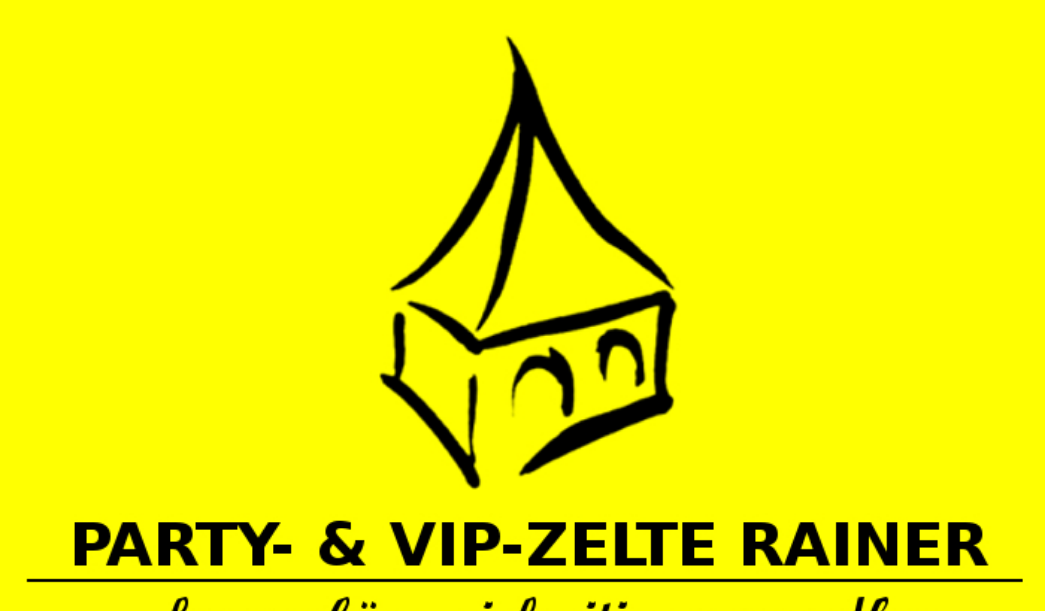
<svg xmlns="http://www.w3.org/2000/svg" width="1045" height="611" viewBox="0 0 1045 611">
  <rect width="100%" height="100%" fill="#fff"/>
  <image x="0" y="0" width="1045" height="611" href="images/1.png"/>
</svg>
